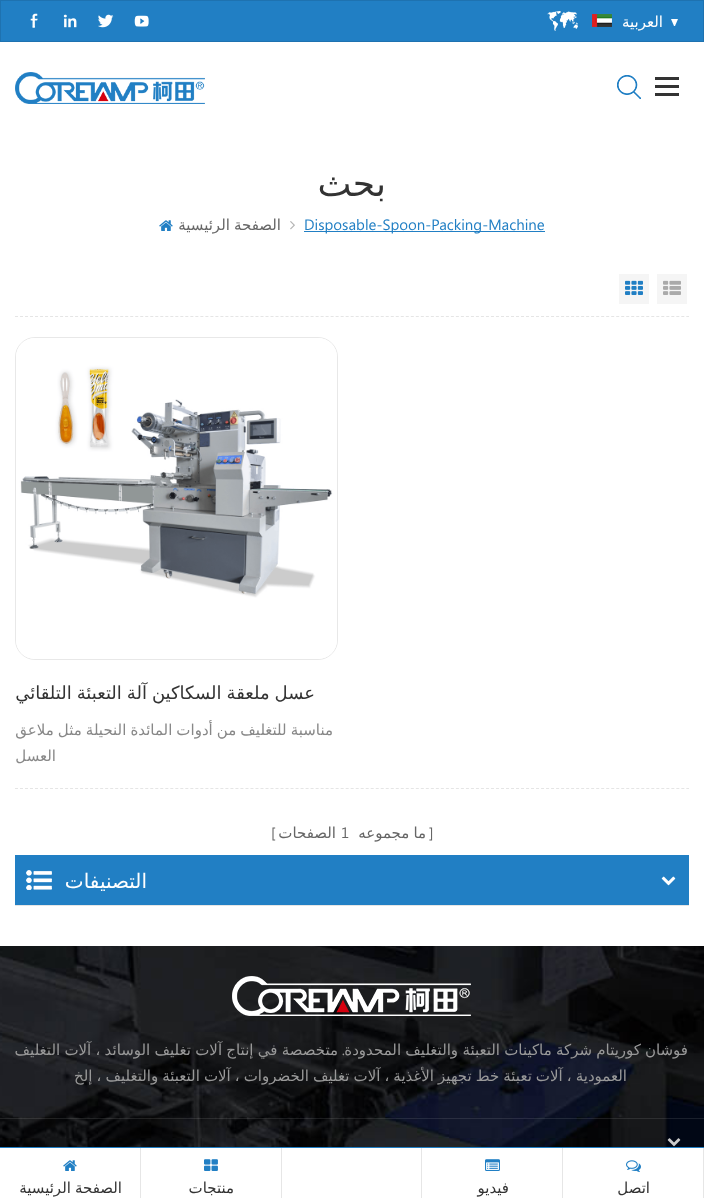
<svg xmlns="http://www.w3.org/2000/svg" width="704" height="1198" viewBox="0 0 704 1198">
  <style>
    .t1 { font: 15px DejaVu Sans; direction: rtl; fill: #fff; }
    .t2 { font: 36px DejaVu Sans; direction: rtl; fill: #333; }
    .t3 { font: 15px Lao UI; fill: #217fc4; }
    .t4 { font: 15px DejaVu Sans; direction: rtl; fill: #666; }
    .t5 { font: 18px DejaVu Sans; direction: rtl; fill: #333; }
    .t6 { font: 15px DejaVu Sans; direction: rtl; fill: #888; }
    .t7 { font: 15px Lao UI; fill: #666; }
    .t8 { font: 20px DejaVu Sans; direction: rtl; fill: #fff; }
    .t9 { font: 15px DejaVu Sans; direction: rtl; fill: #999; }
    .t10 { font: 15px Lao UI; direction: rtl; fill: #999; }
    .t11 { font: 15px DejaVu Sans; direction: rtl; fill: #333; }
  </style>
  <rect width="100%" height="100%" fill="#fff"/>
  <rect x="0.5" y="0.5" width="703" height="41" fill="#217fc4" stroke="#1e72b0"/>
  <image x="547" y="11" width="31" height="20" href="images/1.png"/>
  <image x="671" y="19" width="7" height="7" href="images/2.png"/>
  <text x="663" y="27" class="t1">العربية</text>
  <image x="592" y="14" width="20" height="13" href="images/3.png"/>
  <image x="134" y="15" width="15" height="12" href="images/4.png"/>
  <image x="98" y="14" width="16" height="14" href="images/5.png"/>
  <image x="63" y="14" width="14" height="14" href="images/6.png"/>
  <image x="30" y="13" width="8" height="15" href="images/7.png"/>
  <rect x="655" y="77" width="24" height="3" fill="#333"/>
  <rect x="655" y="85" width="24" height="3" fill="#333"/>
  <rect x="655" y="93" width="24" height="3" fill="#333"/>
  <image x="617" y="75" width="24" height="24" href="images/8.png"/>
  <image x="15" y="72" width="190" height="32" href="images/9.png"/>
  <text x="386" y="196" class="t2">بحث</text>
  <rect x="304" y="231" width="241" height="1" fill="#217fc4"/>
  <text x="304" y="230" class="t3">Disposable-Spoon-Packing-Machine</text>
  <image x="290" y="221" width="5" height="9" href="images/10.png"/>
  <text x="281" y="230" word-spacing="-0.7" class="t4">الصفحة الرئيسية</text>
  <image x="159" y="220" width="14" height="11" href="images/11.png"/>
  <path d="M15 316.5H689" fill="none" stroke="#e5e5e5" stroke-dasharray="3 2.01"/>
  <rect x="657" y="274" width="30" height="30" fill="#f5f5f5"/>
  <image x="663" y="280" width="18" height="15" href="images/12.png"/>
  <rect x="619" y="274" width="30" height="30" fill="#f5f5f5"/>
  <image x="625" y="280" width="18" height="15" href="images/13.png"/>
  <rect x="15.5" y="337.5" width="322" height="322" rx="19.5" fill="none" stroke="#e8e8e8"/>
  <image x="16" y="338" width="321" height="321" href="images/14.png"/>
  <text x="315" y="699" word-spacing="-0.75" class="t5">عسل ملعقة السكاكين آلة التعبئة التلقائي</text>
  <text x="333" y="735" word-spacing="-0.7" class="t6">مناسبة للتغليف من أدوات المائدة النحيلة مثل ملاعق</text>
  <text x="56" y="761" class="t6">العسل</text>
  <path d="M15 788.5H689" fill="none" stroke="#e5e5e5" stroke-dasharray="3 2.01"/>
  <text x="429" y="838" class="t7">]</text>
  <text x="426" y="838" word-spacing="-0.7" class="t4">ما مجموعه</text>
  <text x="341" y="838" class="t7">1</text>
  <text x="336" y="838" class="t4">الصفحات</text>
  <text x="271" y="838" class="t7">[</text>
  <rect x="15" y="855" width="674" height="50" fill="#217fc4"/>
  <rect x="15" y="905" width="674" height="1" fill="#e5e5e5"/>
  <image x="661" y="876" width="15" height="10" href="images/15.png"/>
  <image x="26" y="870" width="26" height="20" href="images/16.png"/>
  <text x="147" y="888" class="t8">التصنيفات</text>
  <image x="0" y="946" width="704" height="201" href="images/17.png"/>
  <rect x="0" y="1118" width="704" height="1" fill="#ffffff1a"/>
  <image x="232" y="976" width="239" height="40" href="images/18.png"/>
  <text x="688" y="1055" class="t9">فوشان</text>
  <text x="641" y="1055" word-spacing="-0.5" class="t9">كوريتام شركة ماكينات التعبئة والتغليف المحدودة</text>
  <text x="345" y="1055" class="t10">.</text>
  <text x="338" y="1055" word-spacing="-0.5" class="t9">متخصصة في إنتاج آلات تغليف الوسائد ، آلات التغليف</text>
  <text x="627" y="1081" word-spacing="-0.7" class="t9">العمودية ، آلات تعبئة خط تجهيز الأغذية ، آلات تغليف الخضروات ، آلات التعبئة والتغليف ، إلخ</text>
  <image x="667" y="1138" width="14" height="9" href="images/19.png"/>
  <rect x="0" y="1147" width="704" height="1" fill="#217fc4"/>
  <rect x="703" y="1148" width="1" height="50" fill="#e6e6e6"/>
  <image x="626" y="1160" width="15" height="12" href="images/20.png"/>
  <text x="650" y="1193" class="t11">اتصل</text>
  <rect x="562" y="1148" width="1" height="50" fill="#e6e6e6"/>
  <image x="485" y="1159" width="15" height="12" href="images/21.png"/>
  <text x="509" y="1193" class="t11">فيديو</text>
  <rect x="421" y="1148" width="1" height="50" fill="#e6e6e6"/>
  <rect x="281" y="1148" width="1" height="50" fill="#e6e6e6"/>
  <image x="204" y="1159" width="14" height="12" href="images/22.png"/>
  <text x="234" y="1193" class="t11">منتجات</text>
  <rect x="140" y="1148" width="1" height="50" fill="#e6e6e6"/>
  <image x="63" y="1160" width="14" height="11" href="images/11.png"/>
  <text x="122" y="1193" word-spacing="-0.7" class="t11">الصفحة الرئيسية</text>
</svg>
